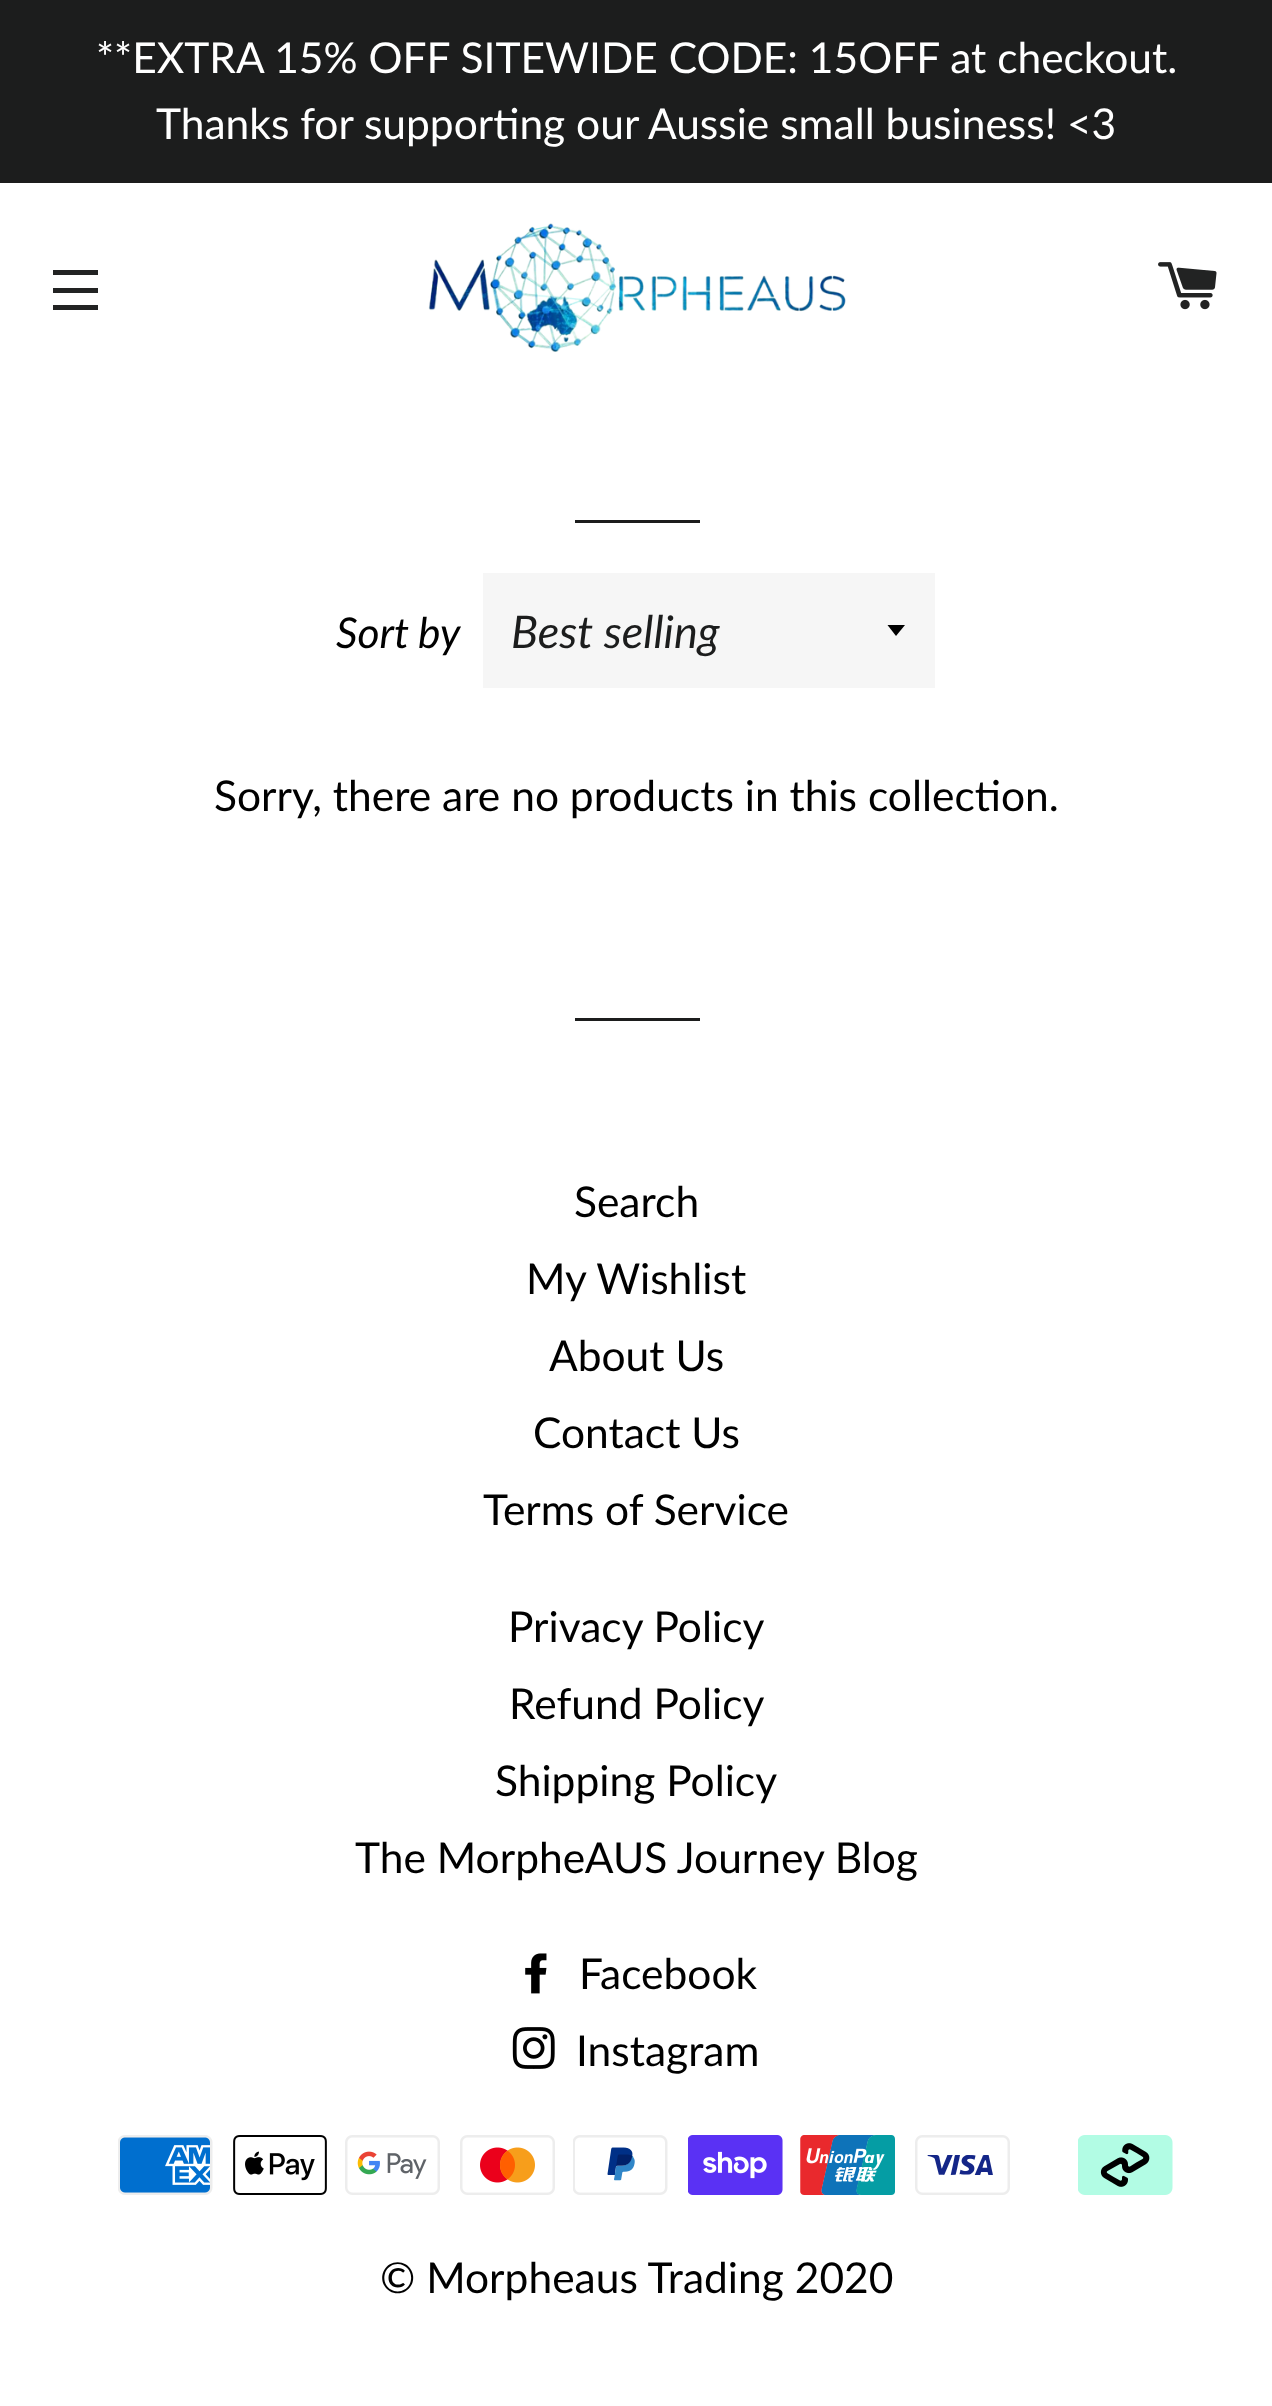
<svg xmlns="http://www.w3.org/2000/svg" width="1272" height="2406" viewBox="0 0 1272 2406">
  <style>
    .t1 { font: 42.5px Lato; fill: #fff; }
    .t2 { font: italic 42.5px Lato; fill: #000; }
    .t3 { font: italic 45px Lato; fill: #1c1d1d; }
    .t4 { font: 42.5px Lato; fill: #000; }
  </style>
  <rect width="100%" height="100%" fill="#fff"/>
  <rect x="0" y="0" width="1272" height="183" fill="#1c1d1d"/>
  <text x="96" y="73" class="t1">**EXTRA 15% OFF SITEWIDE CODE: 15OFF at checkout.</text>
  <text x="156" y="139" class="t1">Thanks for supporting our Aussie small business! &lt;3</text>
  <rect x="53" y="270" width="45" height="5" fill="#222323"/>
  <rect x="53" y="288" width="45" height="5" fill="#222323"/>
  <rect x="53" y="305" width="45" height="5" fill="#222323"/>
  <image x="428" y="223" width="418" height="129" href="images/1.png"/>
  <image x="1158" y="262" width="59" height="48" href="images/2.png"/>
  <rect x="575" y="520" width="125" height="3" fill="#1c1d1d"/>
  <text x="336" y="648" word-spacing="-1" class="t2">Sort by</text>
  <rect x="483" y="573" width="452" height="115" fill="#f6f6f6"/>
  <path d="M887.5 625L896 636L905 625Z" fill="#000"/>
  <text x="511" y="648" class="t3">Best selling</text>
  <text x="214" y="811" class="t4">Sorry, there are no products in this collection.</text>
  <rect x="575" y="1018" width="125" height="3" fill="#1c1d1d"/>
  <text x="574" y="1217" class="t4">Search</text>
  <text x="526" y="1294" class="t4">My Wishlist</text>
  <text x="549" y="1371" class="t4">About Us</text>
  <text x="533" y="1448" class="t4">Contact Us</text>
  <text x="483" y="1525" class="t4">Terms of Service</text>
  <text x="508" y="1642" class="t4">Privacy Policy</text>
  <text x="509" y="1719" class="t4">Refund Policy</text>
  <text x="495" y="1796" class="t4">Shipping Policy</text>
  <text x="355" y="1873" class="t4">The MorpheAUS Journey Blog</text>
  <image x="525" y="1953" width="22" height="41" href="images/3.png"/>
  <text x="579" y="1989" class="t4">Facebook</text>
  <image x="512" y="2027" width="43" height="42" href="images/4.png"/>
  <text x="576" y="2066" class="t4">Instagram</text>
  <image x="118" y="2135" width="95" height="60" href="images/5.png"/>
  <image x="233" y="2135" width="94" height="60" href="images/6.png"/>
  <image x="345" y="2135" width="95" height="60" href="images/7.png"/>
  <image x="460" y="2135" width="95" height="60" href="images/8.png"/>
  <image x="573" y="2135" width="95" height="60" href="images/9.png"/>
  <image x="688" y="2135" width="95" height="60" href="images/10.png"/>
  <image x="800" y="2135" width="95" height="60" href="images/11.png"/>
  <image x="915" y="2135" width="95" height="60" href="images/12.png"/>
  <image x="1078" y="2135" width="95" height="60" href="images/13.png"/>
  <text x="380" y="2293" class="t4">© Morpheaus Trading 2020</text>
</svg>
